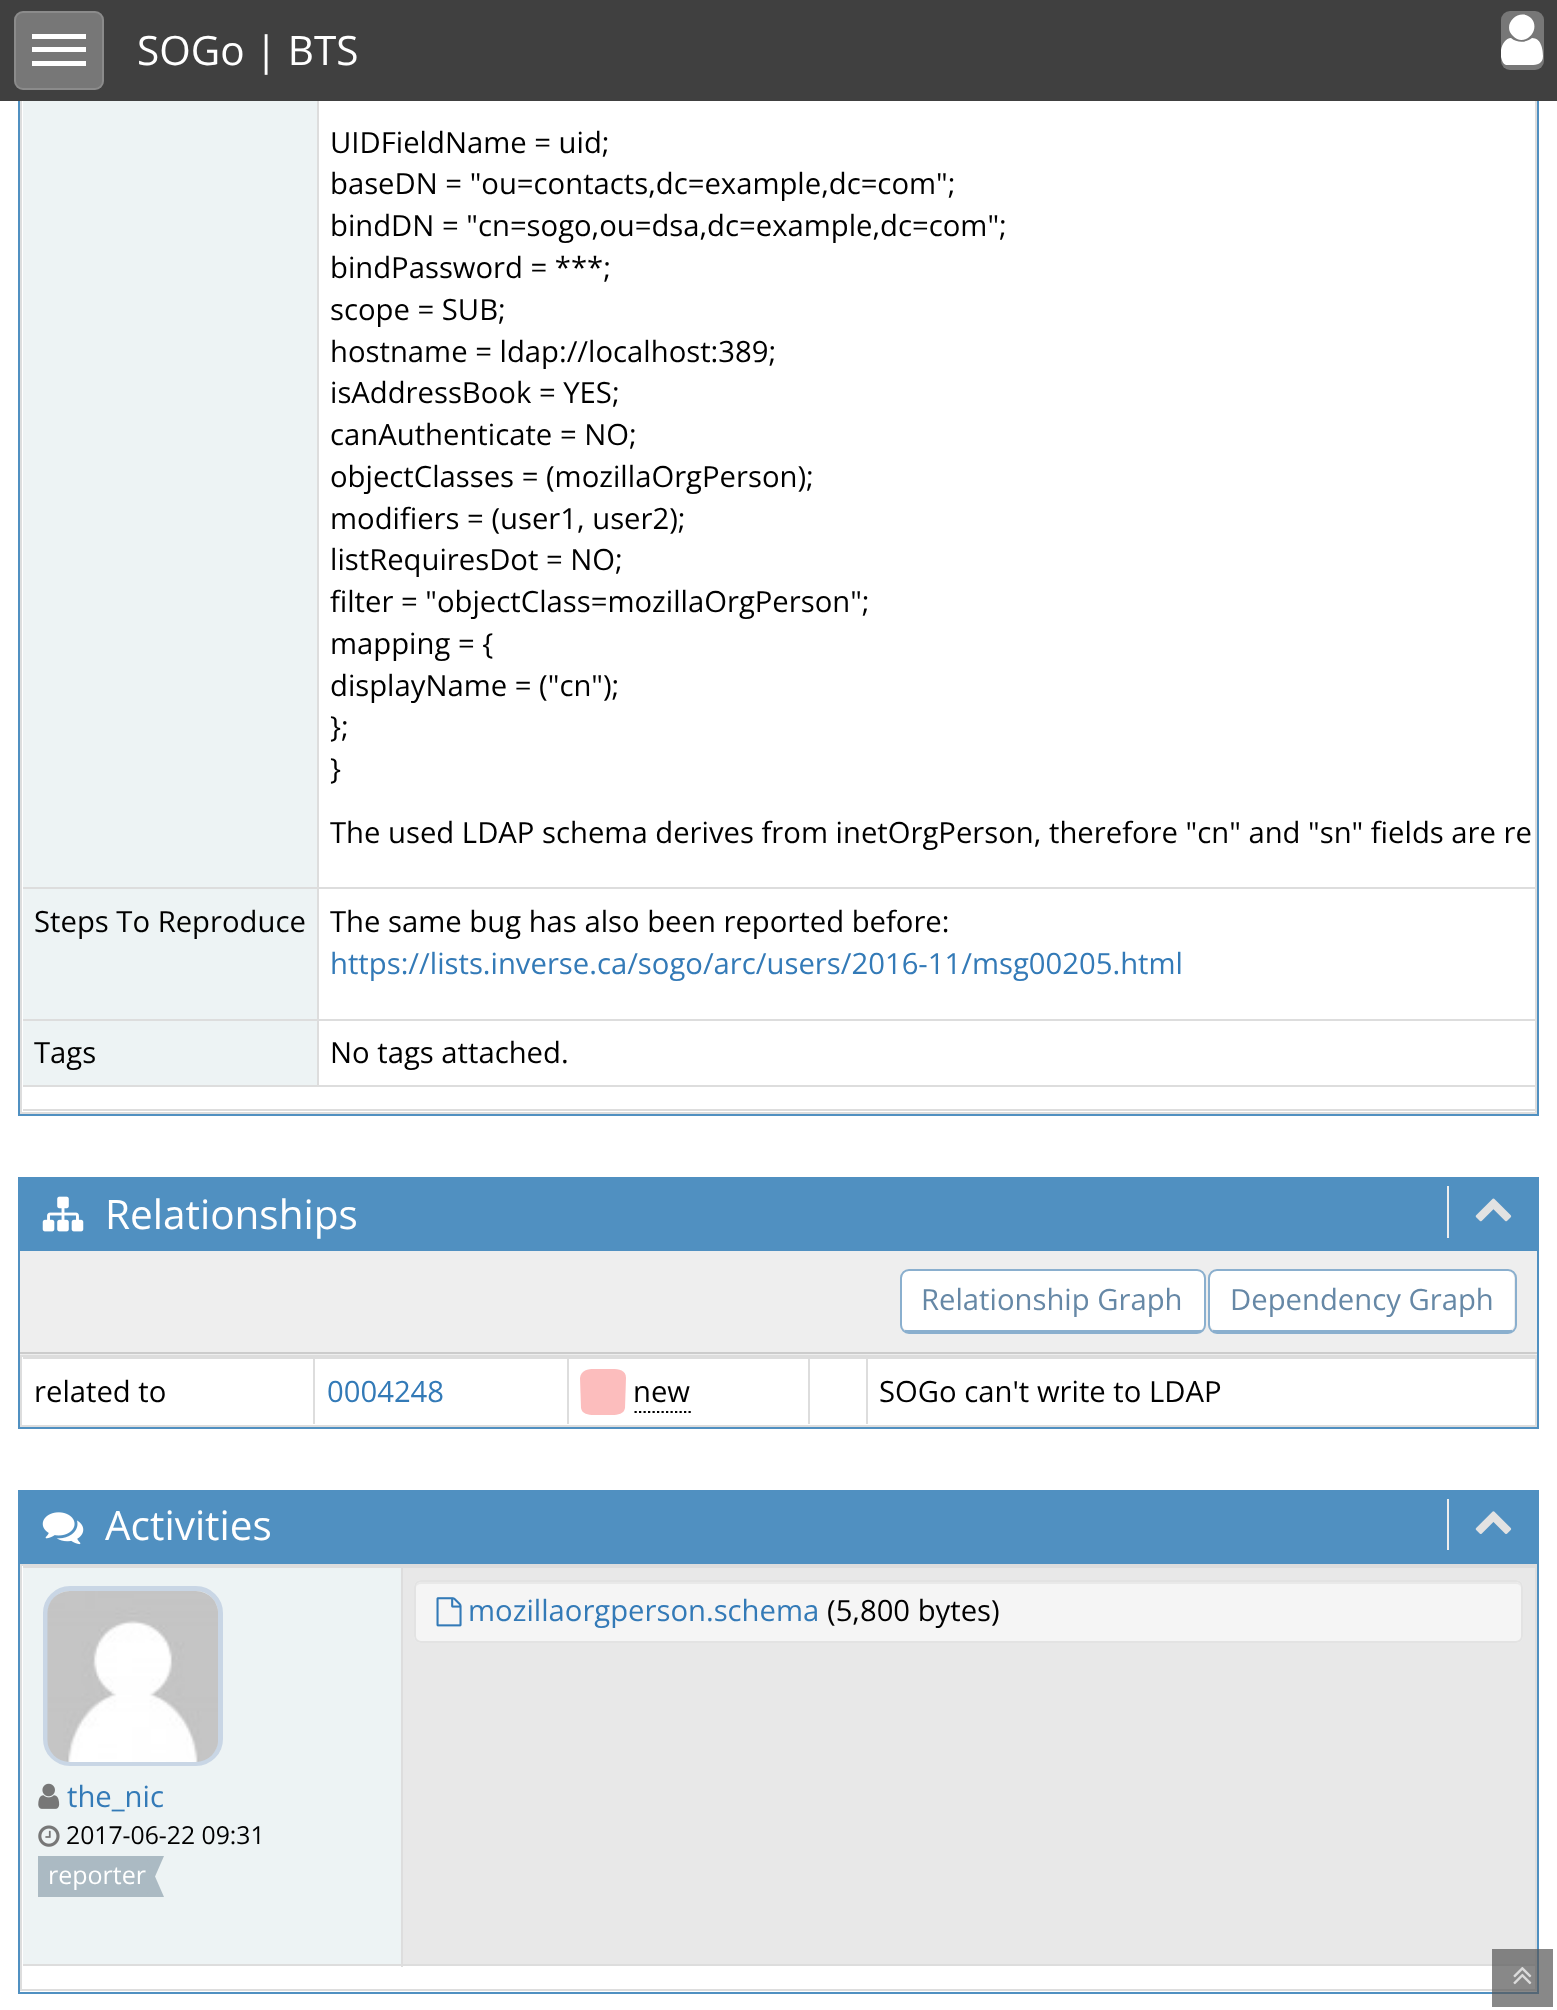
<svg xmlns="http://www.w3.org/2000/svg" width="1557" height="2010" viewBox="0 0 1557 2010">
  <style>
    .t1 { font: 40.5px Open Sans; fill: #fff; }
    .t2 { font: 29.25px Open Sans; fill: #000; }
    .t3 { font: 29.25px Open Sans; fill: #337ab7; }
    .t4 { font: 29.25px Open Sans; fill: #6688a6; }
    .t5 { font: 24.75px Open Sans; fill: #000; }
    .t6 { font: 25px Open Sans; fill: #fff; }
  </style>
  <rect width="100%" height="100%" fill="#fff"/>
  <rect x="19" y="-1" width="1519" height="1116" fill="none" stroke="#5090c1" stroke-width="2"/>
  <rect x="21" y="-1" width="1515" height="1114" fill="none" stroke="#ddd" stroke-width="2"/>
  <rect x="0" y="0" width="1557" height="101" fill="#404040"/>
  <rect x="14" y="11" width="90" height="79" rx="9" fill="#777"/>
  <rect x="15" y="12" width="88" height="77" rx="8" fill="none" stroke="#ffffff26" stroke-width="2"/>
  <rect x="32" y="34" width="54" height="5" fill="#fff"/>
  <rect x="32" y="47" width="54" height="5" fill="#fff"/>
  <rect x="32" y="61" width="54" height="5" fill="#fff"/>
  <text x="137" y="65" class="t1">SOGo | BTS</text>
  <rect x="1501" y="11" width="43" height="59" rx="9" fill="#777"/>
  <path d="M1543 56C1543 64 1537 65 1531 65H1506C1503 64 1502 61 1501 57V50C1502 44 1506 38 1511 38C1517 43 1526 43 1532 38C1541 38 1543 49 1543 56ZM1531 18C1519 7 1501 25 1513 36C1524 48 1542 30 1531 18Z" fill="#fff" fill-rule="evenodd"/>
  <rect x="23" y="101" width="294" height="786" fill="#edf3f4"/>
  <rect x="317" y="887" width="1218" height="2" fill="#ddd"/>
  <rect x="317" y="1019" width="1218" height="2" fill="#ddd"/>
  <rect x="23" y="1085" width="1512" height="2" fill="#ddd"/>
  <rect x="317" y="1019" width="2" height="68" fill="#ddd"/>
  <rect x="23" y="1019" width="297" height="2" fill="#ddd"/>
  <rect x="317" y="887" width="2" height="135" fill="#ddd"/>
  <rect x="23" y="887" width="297" height="2" fill="#ddd"/>
  <rect x="317" y="101" width="2" height="788" fill="#ddd"/>
  <text x="330" y="153" class="t2">UIDFieldName = uid;</text>
  <text x="330" y="194" class="t2">baseDN = "ou=contacts,dc=example,dc=com";</text>
  <text x="330" y="236" class="t2">bindDN = "cn=sogo,ou=dsa,dc=example,dc=com";</text>
  <text x="330" y="278" class="t2">bindPassword = ***;</text>
  <text x="330" y="320" class="t2">scope = SUB;</text>
  <text x="330" y="362" class="t2">hostname = ldap://localhost:389;</text>
  <text x="330" y="403" class="t2">isAddressBook = YES;</text>
  <text x="330" y="445" class="t2">canAuthenticate = NO;</text>
  <text x="330" y="487" class="t2">objectClasses = (mozillaOrgPerson);</text>
  <text x="330" y="529" class="t2">modifiers = (user1, user2);</text>
  <text x="330" y="570" class="t2">listRequiresDot = NO;</text>
  <text x="330" y="612" class="t2">filter = "objectClass=mozillaOrgPerson";</text>
  <text x="330" y="654" class="t2">mapping = {</text>
  <text x="330" y="696" class="t2">displayName = ("cn");</text>
  <text x="330" y="737" class="t2">};</text>
  <text x="330" y="779" class="t2">}</text>
  <text x="330" y="843" class="t2">The used LDAP schema derives from inetOrgPerson, therefore "cn" and "sn" fields are re</text>
  <rect x="23" y="889" width="294" height="130" fill="#edf3f4"/>
  <text x="34" y="932" class="t2">Steps To Reproduce</text>
  <text x="330" y="932" class="t2">The same bug has also been reported before:</text>
  <text x="330" y="974" class="t3">https://lists.inverse.ca/sogo/arc/users/2016-11/msg00205.html</text>
  <rect x="23" y="1021" width="294" height="64" fill="#edf3f4"/>
  <text x="34" y="1063" class="t2">Tags</text>
  <text x="330" y="1063" class="t2">No tags attached.</text>
  <rect x="23" y="1109" width="1512" height="2" fill="#ddd"/>
  <rect x="19" y="1178" width="1519" height="250" fill="none" stroke="#5090c1" stroke-width="2"/>
  <rect x="20" y="1179" width="1517" height="72" fill="#5090c1"/>
  <image x="42" y="1196" width="42" height="36" href="images/1.png"/>
  <text x="105" y="1229" class="t1">Relationships</text>
  <rect x="1447" y="1186" width="2" height="52" fill="#eee"/>
  <image x="1475" y="1198" width="37" height="24" href="images/2.png"/>
  <rect x="20" y="1251" width="1517" height="104" fill="#eee"/>
  <rect x="20" y="1352" width="1517" height="2" fill="#ccc"/>
  <path d="M909 1271H1197C1201 1271 1204 1274 1204 1278V1325C1204 1328 1201 1330 1197 1330H909C905 1330 902 1328 902 1325V1278C902 1274 905 1271 909 1271Z" fill="#fff"/>
  <rect x="901" y="1270" width="304" height="63" rx="8" fill="none" stroke="#8aafce" stroke-width="2"/>
  <rect x="905" y="1330" width="297" height="2" fill="#8aafce"/>
  <text x="921" y="1310" class="t4">Relationship Graph</text>
  <path d="M1217 1271H1508C1511 1271 1514 1274 1514 1278V1325C1514 1328 1511 1330 1508 1330H1217C1214 1330 1210 1328 1210 1325V1278C1210 1274 1214 1271 1217 1271Z" fill="#fff"/>
  <rect x="1209" y="1270" width="307" height="63" rx="8" fill="none" stroke="#8aafce" stroke-width="2"/>
  <rect x="1213" y="1330" width="299" height="2" fill="#8aafce"/>
  <text x="1230" y="1310" class="t4">Dependency Graph</text>
  <rect x="21" y="1356" width="1515" height="70" fill="none" stroke="#ddd" stroke-width="2"/>
  <rect x="866" y="1357" width="669" height="2" fill="#ddd"/>
  <rect x="866" y="1357" width="2" height="67" fill="#ddd"/>
  <rect x="808" y="1357" width="61" height="2" fill="#ddd"/>
  <rect x="808" y="1357" width="2" height="67" fill="#ddd"/>
  <rect x="567" y="1357" width="243" height="2" fill="#ddd"/>
  <rect x="567" y="1357" width="2" height="67" fill="#ddd"/>
  <rect x="313" y="1357" width="256" height="2" fill="#ddd"/>
  <rect x="313" y="1357" width="2" height="67" fill="#ddd"/>
  <rect x="23" y="1357" width="292" height="2" fill="#ddd"/>
  <text x="34" y="1402" class="t2">related to</text>
  <text x="327" y="1402" class="t3">0004248</text>
  <path d="M626 1378L625 1408C624 1414 618 1415 612 1415H594C588 1415 582 1414 581 1408L580 1378C581 1370 588 1369 594 1369H612C619 1369 626 1370 626 1378Z" fill="#fcbdbd"/>
  <text x="633" y="1402" class="t2">new</text>
  <path d="M634.5 1412H691" fill="none" stroke="#000" stroke-width="2.2" stroke-dasharray="2.25 2.25"/>
  <text x="879" y="1402" class="t2">SOGo can't write to LDAP</text>
  <rect x="19" y="1491" width="1519" height="502" fill="none" stroke="#5090c1" stroke-width="2"/>
  <rect x="20" y="1492" width="1517" height="72" fill="#5090c1"/>
  <image x="42" y="1512" width="42" height="33" href="images/3.png"/>
  <text x="105" y="1540" class="t1">Activities</text>
  <rect x="1447" y="1499" width="2" height="51" fill="#eee"/>
  <image x="1475" y="1511" width="37" height="23" href="images/4.png"/>
  <rect x="21" y="1565" width="1515" height="425" fill="none" stroke="#ddd" stroke-width="2"/>
  <rect x="403" y="1568" width="1132" height="396" fill="#e8e8e8"/>
  <rect x="401" y="1566" width="1134" height="2" fill="#ddd"/>
  <rect x="23" y="1964" width="1512" height="2" fill="#ddd"/>
  <rect x="401" y="1566" width="2" height="401" fill="#ddd"/>
  <rect x="414" y="1580" width="1109" height="63" rx="7" fill="#f5f5f5"/>
  <path d="M421 1584H1516C1519 1584 1521 1586 1521 1588C1521 1585 1519 1582 1516 1582H421C418 1582 416 1585 416 1588C416 1586 418 1584 421 1584Z" fill="#e9e9e9"/>
  <rect x="415" y="1581" width="1107" height="61" rx="6" fill="none" stroke="#e3e3e3" stroke-width="2"/>
  <image x="436" y="1597" width="26" height="30" href="images/5.png"/>
  <text x="468" y="1621" class="t3">mozillaorgperson.schema</text>
  <text x="827" y="1621" class="t2">(5,800 bytes)</text>
  <rect x="23" y="1568" width="378" height="396" fill="#edf3f4"/>
  <rect x="23" y="1566" width="380" height="2" fill="#ddd"/>
  <rect x="45.5" y="1588.5" width="175" height="175" rx="24.5" fill="none" stroke="#c9d6e5" stroke-width="5"/>
  <image x="47" y="1591" width="171" height="171" href="images/6.png"/>
  <image x="38" y="1783" width="22" height="26" href="images/7.png"/>
  <text x="67" y="1807" class="t3">the_nic</text>
  <image x="38" y="1825" width="22" height="22" href="images/8.png"/>
  <text x="66" y="1844" class="t5">2017-06-22 09:31</text>
  <rect x="38" y="1856" width="117" height="41" fill="#abbac3"/>
  <text x="48" y="1884" class="t6">reporter</text>
  <path d="M146 1856H164L155 1876.5Z" fill="#abbac3"/>
  <path d="M164 1897H146L155 1876.5Z" fill="#abbac3"/>
  <rect x="1492" y="1949" width="61" height="58" fill="#555555b3"/>
  <image x="1513" y="1967" width="19" height="18" href="images/9.png"/>
</svg>
